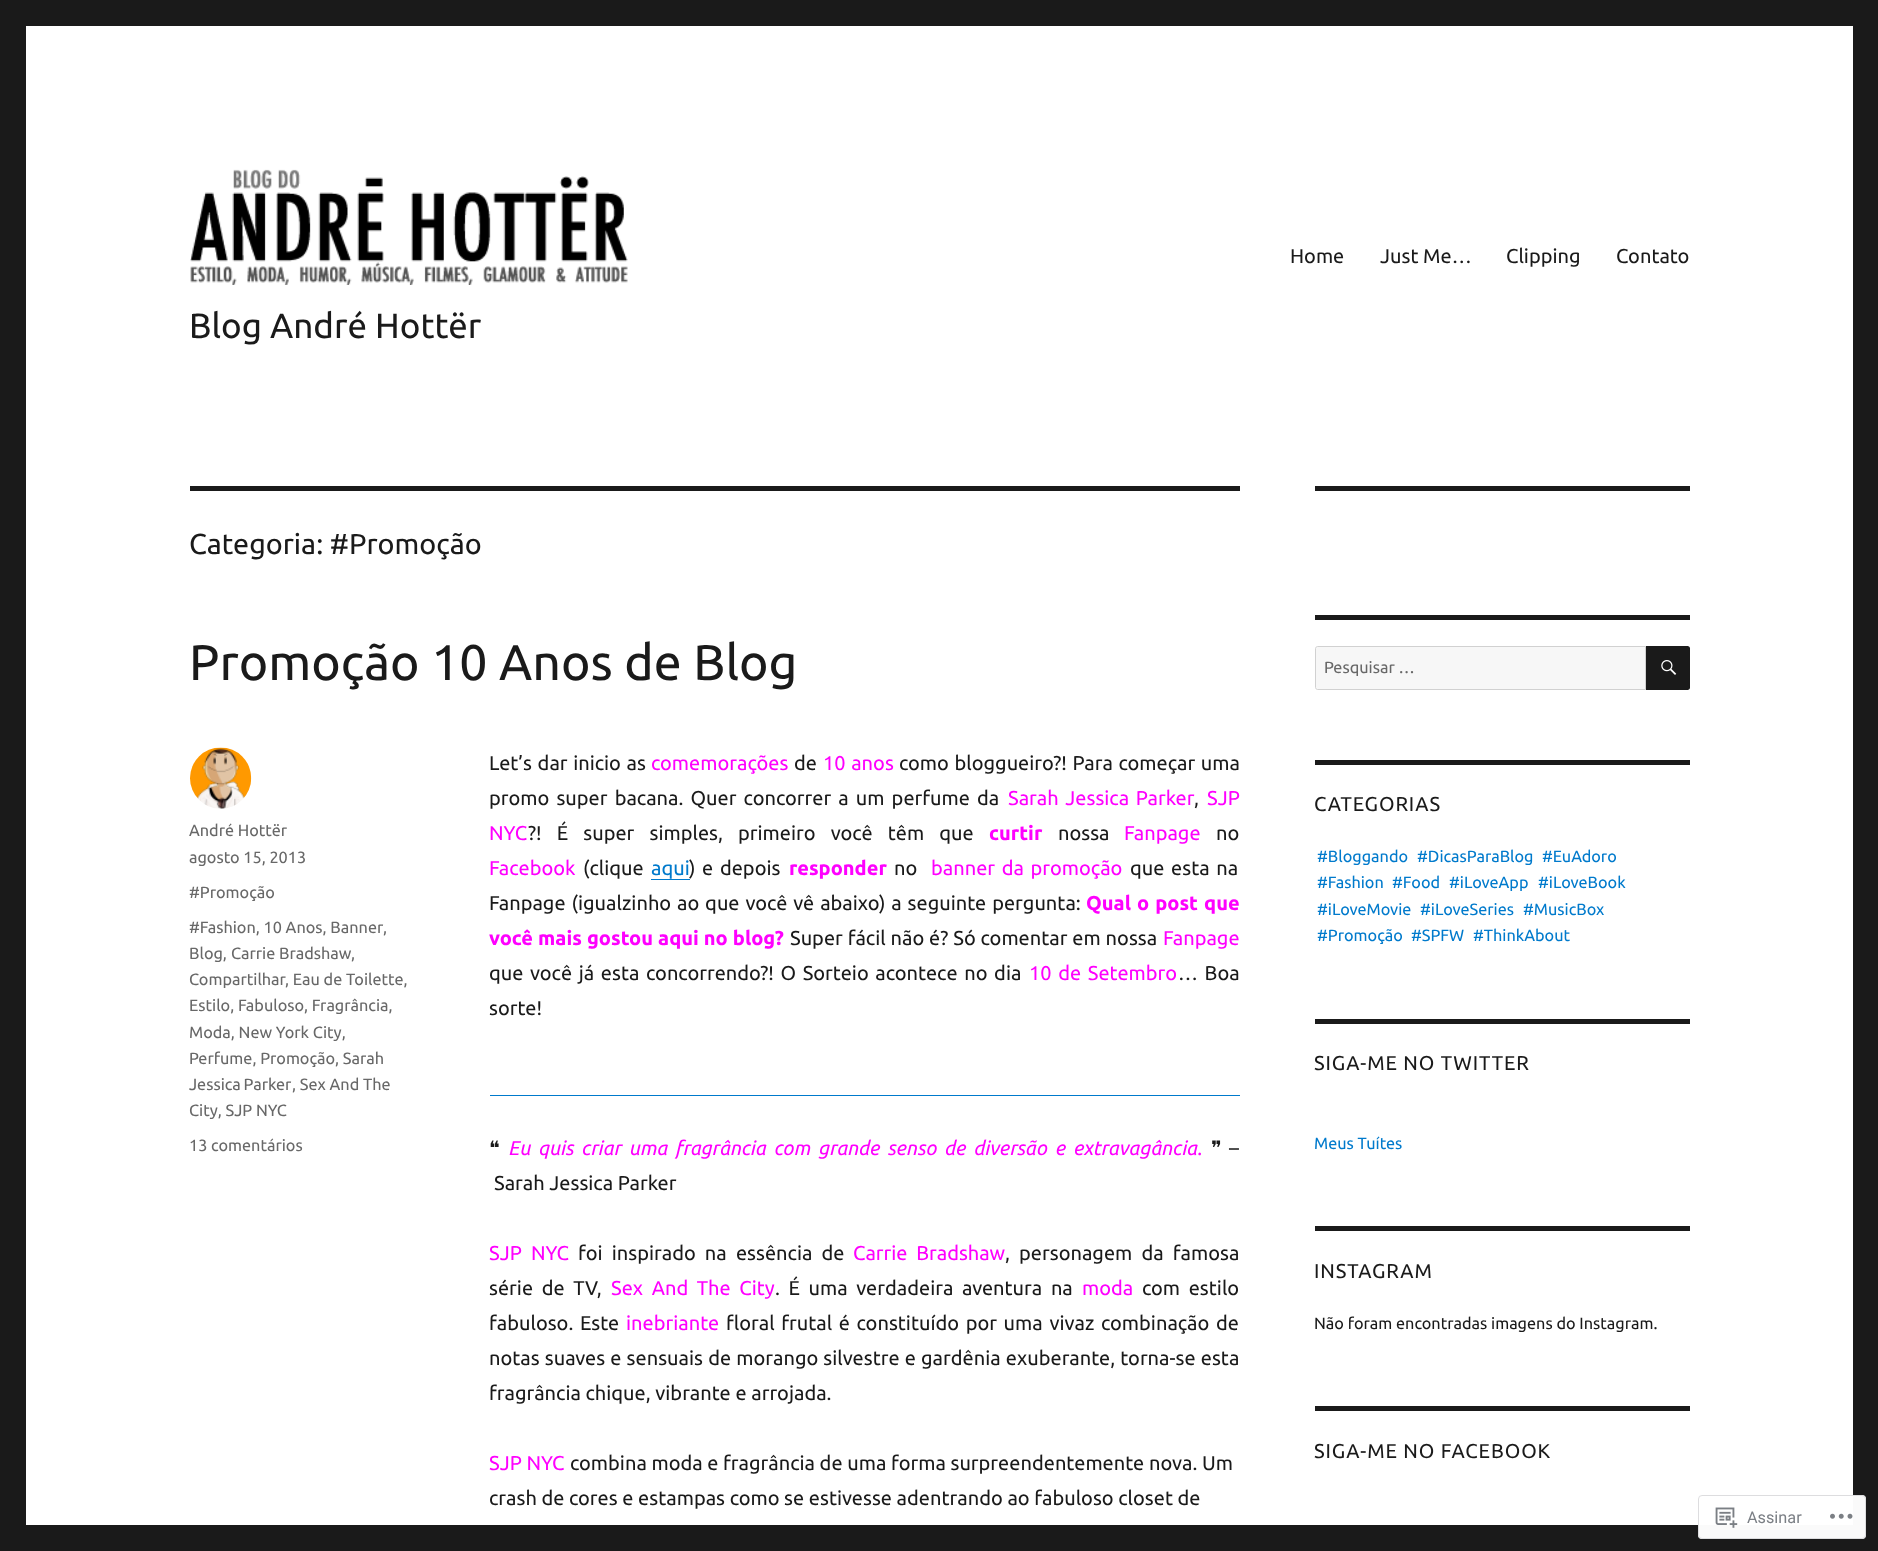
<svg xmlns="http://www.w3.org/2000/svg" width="1878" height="1551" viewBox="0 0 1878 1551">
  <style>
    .t1 { font: 20px Ubuntu; fill: #1a1a1a; }
    .t2 { font: 35px Ubuntu; fill: #1a1a1a; }
    .t3 { font: 28.75px Ubuntu; fill: #1a1a1a; }
    .t4 { font: 50px Ubuntu; fill: #1a1a1a; }
    .t5 { font: 16.25px Ubuntu; fill: #686868; }
    .t6 { font: 20px Ubuntu; fill: #f0f; }
    .t7 { font: bold 20px Ubuntu; fill: #f0f; }
    .t8 { font: 20px Ubuntu; fill: #007acc; }
    .t9 { font: 20px DejaVu Sans; fill: #1a1a1a; }
    .t10 { font: italic 20px Ubuntu; fill: #f0f; }
    .t11 { font: 20px Ubuntu; letter-spacing: 0.9px; fill: #1a1a1a; }
    .t12 { font: 16.25px Ubuntu; fill: #007acc; }
    .t13 { font: 16.25px Ubuntu; fill: #1a1a1a; }
    .t14 { font: 16.25px Roboto; fill: #7b7f85; }
  </style>
  <rect width="100%" height="100%" fill="#1a1a1a"/>
  <rect x="26" y="26" width="1827" height="1499" fill="#fff"/>
  <text x="1290" y="263" class="t1">Home</text>
  <text x="1380" y="263" class="t1">Just Me…</text>
  <text x="1506" y="263" class="t1">Clipping</text>
  <text x="1616" y="263" class="t1">Contato</text>
  <image x="190" y="169" width="438" height="116" href="images/1.png"/>
  <text x="189" y="338" class="t2">Blog André Hottër</text>
  <rect x="190" y="486" width="1050" height="5" fill="#1a1a1a"/>
  <text x="189" y="554" class="t3">Categoria: #Promoção</text>
  <text x="189" y="680" class="t4">Promoção 10 Anos de Blog</text>
  <image x="190" y="747" width="62" height="62" href="images/2.png"/>
  <text x="189" y="836" class="t5">André Hottër</text>
  <text x="189" y="863" class="t5">agosto 15, 2013</text>
  <text x="189" y="898" class="t5">#Promoção</text>
  <text x="189" y="933" class="t5">#Fashion, 10 Anos, Banner</text>
  <text x="383" y="933" class="t5">,</text>
  <text x="189" y="959" class="t5">Blog,</text>
  <text x="231" y="959" class="t5">Carrie Bradshaw</text>
  <text x="351" y="959" class="t5">,</text>
  <text x="189" y="985" class="t5">Compartilhar</text>
  <text x="285" y="985" class="t5">, Eau de Toilette,</text>
  <text x="189" y="1011" class="t5">Estilo, Fabuloso, Fragrância,</text>
  <text x="189" y="1038" class="t5">Moda, New York City,</text>
  <text x="189" y="1064" class="t5">Perfume, Promoção, Sarah</text>
  <text x="189" y="1090" word-spacing="-1" class="t5">Jessica Parker</text>
  <text x="292" y="1090" class="t5">, Sex And The</text>
  <text x="189" y="1116" class="t5">City, SJP NYC</text>
  <text x="189" y="1151" class="t5">13 comentários</text>
  <text x="489" y="770" word-spacing="1" class="t1">Let’s dar inicio as</text>
  <text x="651" y="770" class="t6">comemorações</text>
  <text x="794" y="770" class="t1">de</text>
  <text x="823" y="770" word-spacing="1" class="t6">10 anos</text>
  <text x="899" y="770" word-spacing="1" class="t1">como bloggueiro?! Para começar uma</text>
  <text x="489" y="805" word-spacing="2.5" class="t1">promo super bacana. Quer concorrer a um perfume da</text>
  <text x="1008" y="805" word-spacing="2" class="t6">Sarah Jessica Parker</text>
  <text x="1194" y="805" class="t1">,</text>
  <text x="1207" y="805" class="t6">SJP</text>
  <text x="489" y="840" class="t6">NYC</text>
  <text x="528" y="840" word-spacing="10.5" class="t1">?! É super simples, primeiro você têm que</text>
  <text x="989" y="840" class="t7">curtir</text>
  <text x="1058" y="840" class="t1">nossa</text>
  <text x="1124" y="840" class="t6">Fanpage</text>
  <text x="1216" y="840" class="t1">no</text>
  <text x="489" y="875" class="t6">Facebook</text>
  <text x="583" y="875" class="t1">(clique</text>
  <text x="651" y="875" class="t8">aqui</text>
  <path d="M651 858V880H690V879H651Z" fill="#007acc"/>
  <text x="689" y="875" word-spacing="2" class="t1">) e depois</text>
  <text x="789" y="875" class="t7">responder</text>
  <text x="894" y="875" class="t1">no</text>
  <text x="931" y="875" word-spacing="2" class="t6">banner da promoção</text>
  <text x="1130" y="875" word-spacing="2" class="t1">que esta na</text>
  <text x="489" y="910" word-spacing="1.25" class="t1">Fanpage (igualzinho ao que você vê abaixo) a seguinte pergunta:</text>
  <text x="1086" y="910" word-spacing="1.25" class="t7">Qual o post que</text>
  <text x="489" y="945" word-spacing="0.25" class="t7">você mais gostou aqui no blog?</text>
  <text x="790" y="945" word-spacing="0.25" class="t1">Super fácil não é? Só comentar em nossa</text>
  <text x="1163" y="945" class="t6">Fanpage</text>
  <text x="489" y="980" word-spacing="2" class="t1">que você já esta concorrendo?! O Sorteio acontece no dia</text>
  <text x="1029" y="980" word-spacing="2" class="t6">10 de Setembro</text>
  <text x="1178" y="980" word-spacing="2" class="t1">… Boa</text>
  <text x="489" y="1015" class="t1">sorte!</text>
  <rect x="490" y="1095" width="750" height="1" fill="#007acc"/>
  <text x="489" y="1155" class="t9">❝</text>
  <text x="508" y="1155" word-spacing="3.25" class="t10">Eu quis criar uma fragrância com grande senso de diversão e extravagância.</text>
  <text x="1211" y="1155" class="t9">❞</text>
  <text x="1229" y="1155" class="t1">–</text>
  <text x="494" y="1190" class="t1">Sarah Jessica Parker</text>
  <text x="489" y="1260" word-spacing="4.5" class="t6">SJP NYC</text>
  <text x="578" y="1260" word-spacing="4.5" class="t1">foi inspirado na essência de</text>
  <text x="853" y="1260" word-spacing="4" class="t6">Carrie Bradshaw</text>
  <text x="1005" y="1260" word-spacing="4.5" class="t1">, personagem da famosa</text>
  <text x="489" y="1295" word-spacing="4" class="t1">série de TV,</text>
  <text x="611" y="1295" word-spacing="4" class="t6">Sex And The City</text>
  <text x="775" y="1295" word-spacing="4" class="t1">. É uma verdadeira aventura na</text>
  <text x="1082" y="1295" class="t6">moda</text>
  <text x="1142" y="1295" word-spacing="4" class="t1">com estilo</text>
  <text x="489" y="1330" word-spacing="2" class="t1">fabuloso. Este</text>
  <text x="626" y="1330" class="t6">inebriante</text>
  <text x="726" y="1330" word-spacing="2" class="t1">floral frutal é constituído por uma vivaz combinação de</text>
  <text x="489" y="1365" word-spacing="0.5" class="t1">notas suaves e sensuais de morango silvestre e gardênia exuberante, torna-se esta</text>
  <text x="489" y="1400" class="t1">fragrância chique, vibrante e arrojada.</text>
  <text x="489" y="1470" class="t6">SJP NYC</text>
  <text x="570" y="1470" class="t1">combina moda e fragrância de uma forma surpreendentemente nova. Um</text>
  <text x="489" y="1505" class="t1">crash de cores e estampas como se estivesse adentrando ao fabuloso closet de</text>
  <rect x="1315" y="486" width="375" height="5" fill="#1a1a1a"/>
  <rect x="1315" y="615" width="375" height="5" fill="#1a1a1a"/>
  <path d="M1317.5 646.5H1645.5V689.5H1317.5C1316.5 689.5 1315.5 688.5 1315.5 687.5V648.5C1315.5 647.5 1316.5 646.5 1317.5 646.5Z" fill="#f7f7f7" stroke="#d1d1d1"/>
  <text x="1324" y="673" class="t5">Pesquisar …</text>
  <path d="M1646 646H1687.5C1689 646 1690 647 1690 648.5V687.5C1690 689 1689 690 1687.5 690H1646Z" fill="#1a1a1a"/>
  <image x="1661" y="660" width="16" height="15" href="images/3.png"/>
  <rect x="1315" y="760" width="375" height="5" fill="#1a1a1a"/>
  <text x="1314" y="811" class="t11">CATEGORIAS</text>
  <text x="1317" y="862" class="t12">#Bloggando</text>
  <text x="1417" y="862" class="t12">#DicasParaBlog</text>
  <text x="1542" y="862" class="t12">#EuAdoro</text>
  <text x="1317" y="888" class="t12">#Fashion</text>
  <text x="1392" y="888" class="t12">#Food</text>
  <text x="1449" y="888" class="t12">#iLoveApp</text>
  <text x="1538" y="888" class="t12">#iLoveBook</text>
  <text x="1317" y="915" class="t12">#iLoveMovie</text>
  <text x="1420" y="915" class="t12">#iLoveSeries</text>
  <text x="1523" y="915" class="t12">#MusicBox</text>
  <text x="1317" y="941" class="t12">#Promoção</text>
  <text x="1411" y="941" class="t12">#SPFW</text>
  <text x="1473" y="941" class="t12">#ThinkAbout</text>
  <rect x="1315" y="1019" width="375" height="5" fill="#1a1a1a"/>
  <text x="1314" y="1070" class="t11">SIGA-ME NO TWITTER</text>
  <text x="1314" y="1149" class="t12">Meus Tuítes</text>
  <rect x="1315" y="1226" width="375" height="5" fill="#1a1a1a"/>
  <text x="1314" y="1278" class="t11">INSTAGRAM</text>
  <text x="1314" y="1329" class="t13">Não foram encontradas imagens do Instagram.</text>
  <rect x="1315" y="1406" width="375" height="5" fill="#1a1a1a"/>
  <text x="1314" y="1458" class="t11">SIGA-ME NO FACEBOOK</text>
  <rect x="1698" y="1495" width="168" height="44" rx="4" fill="#fffffffa"/>
  <rect x="1698.5" y="1495.5" width="167" height="43" rx="3.5" fill="none" stroke="#dcdcdefa"/>
  <image x="1715" y="1507" width="23" height="21" href="images/4.png"/>
  <text x="1747" y="1523" class="t14">Assinar</text>
  <image x="1830" y="1513" width="23" height="6" href="images/5.png"/>
</svg>
